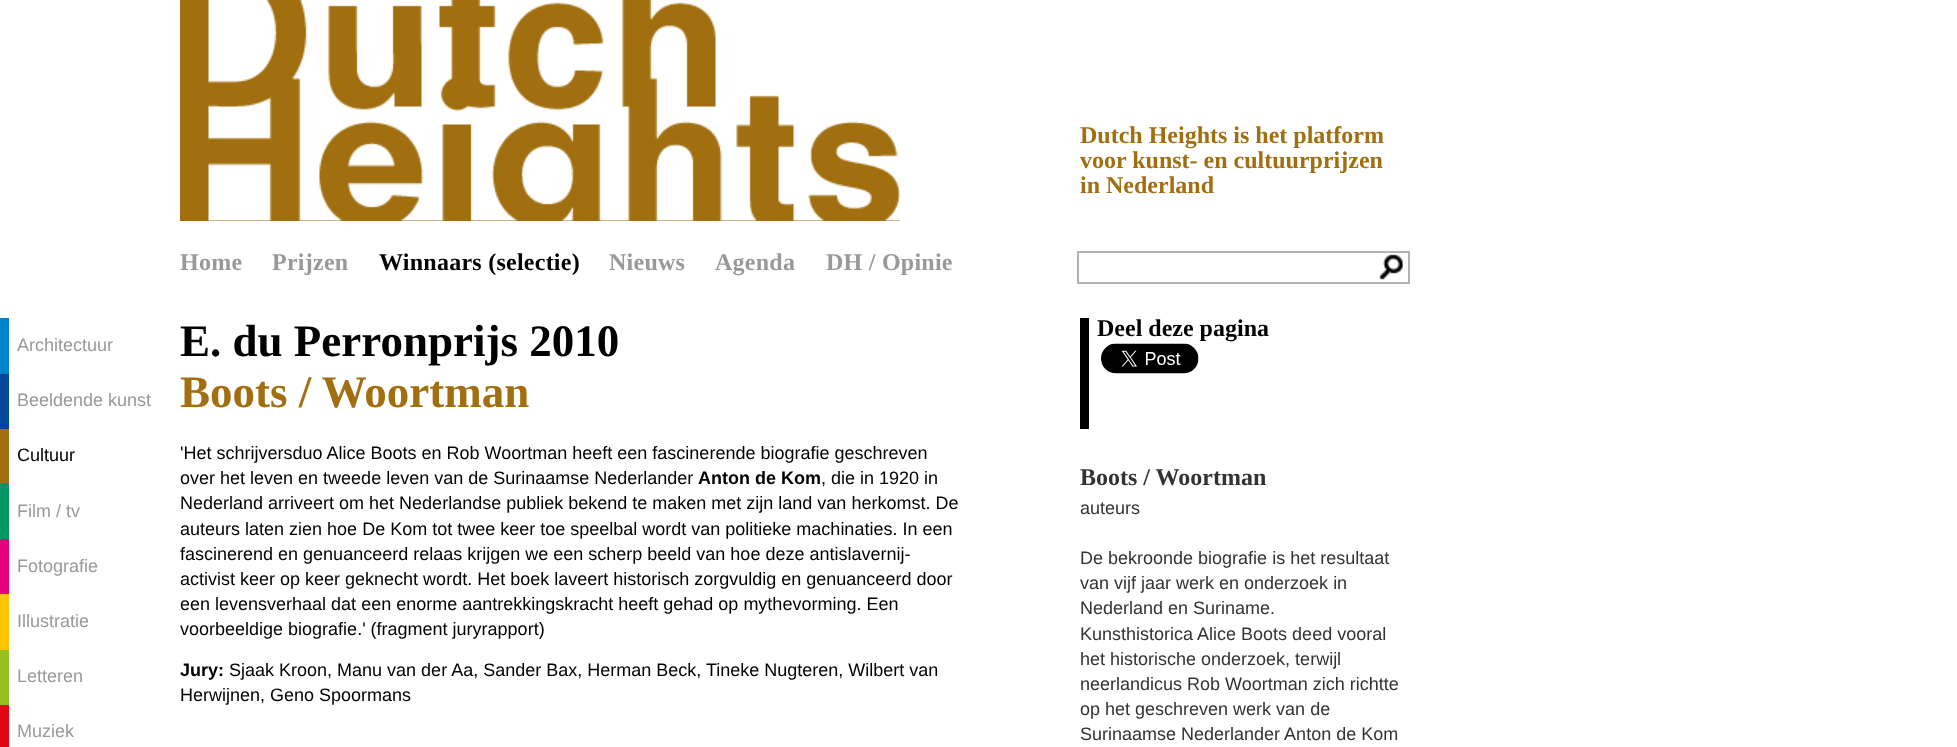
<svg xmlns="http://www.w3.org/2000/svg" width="1957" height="747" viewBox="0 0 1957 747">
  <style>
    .t1 { font: bold 24px Liberation Serif; fill: #a16f10; }
    .t2 { font: bold 24px Liberation Serif; letter-spacing: 0.25px; fill: #999; }
    .t3 { font: bold 24px Liberation Serif; letter-spacing: 0.25px; fill: #000; }
    .t4 { font: 18px Liberation Sans; fill: #999; }
    .t5 { font: 18px Liberation Sans; fill: #000; }
    .t6 { font: bold 45px Liberation Serif; fill: #000; }
    .t7 { font: bold 45px Liberation Serif; fill: #a16f10; }
    .t8 { font: bold 18px Liberation Sans; fill: #000; }
    .t9 { font: bold 24px Liberation Serif; fill: #000; }
    .t10 { font: bold 24px Liberation Serif; fill: #333; }
    .t11 { font: 18px Liberation Sans; fill: #333; }
  </style>
  <rect width="100%" height="100%" fill="#fff"/>
  <rect x="180" y="0" width="720" height="221" fill="#a16f10"/>
  <image x="208" y="0" width="692" height="221" href="images/1.png"/>
  <text x="1080" y="143" class="t1">Dutch Heights is het platform</text>
  <text x="1080" y="168" class="t1">voor kunst- en cultuurprijzen</text>
  <text x="1080" y="193" class="t1">in Nederland</text>
  <rect x="1078" y="252" width="331" height="31" fill="none" stroke="#b3b3b3" stroke-width="2"/>
  <image x="1379" y="254" width="24" height="26" href="images/2.png"/>
  <text x="180" y="270" class="t2">Home</text>
  <text x="272" y="270" class="t2">Prijzen</text>
  <text x="379" y="270" class="t3">Winnaars (selectie)</text>
  <text x="609" y="270" class="t2">Nieuws</text>
  <text x="715" y="270" class="t2">Agenda</text>
  <text x="826" y="270" class="t2">DH / Opinie</text>
  <rect x="0" y="318" width="9" height="56" fill="#0085cc"/>
  <text x="17" y="351" class="t4">Architectuur</text>
  <rect x="0" y="374" width="9" height="55" fill="#014798"/>
  <text x="17" y="406" class="t4">Beeldende kunst</text>
  <rect x="0" y="429" width="9" height="54" fill="#a16f10"/>
  <text x="17" y="461" class="t5">Cultuur</text>
  <rect x="0" y="483" width="9" height="56" fill="#009666"/>
  <text x="17" y="517" class="t4">Film / tv</text>
  <rect x="0" y="539" width="9" height="55" fill="#e5007d"/>
  <text x="17" y="572" class="t4">Fotografie</text>
  <rect x="0" y="594" width="9" height="56" fill="#ffc606"/>
  <text x="17" y="627" class="t4">Illustratie</text>
  <rect x="0" y="650" width="9" height="55" fill="#94c01e"/>
  <text x="17" y="682" class="t4">Letteren</text>
  <rect x="0" y="705" width="9" height="42" fill="#e20513"/>
  <text x="17" y="737" class="t4">Muziek</text>
  <text x="180" y="356" class="t6">E. du Perronprijs 2010</text>
  <text x="180" y="407" class="t7">Boots / Woortman</text>
  <text x="180" y="459" class="t5">'Het schrijversduo Alice Boots en Rob Woortman heeft een fascinerende biografie geschreven</text>
  <text x="180" y="484" class="t5">over het leven en tweede leven van de Surinaamse Nederlander</text>
  <text x="698" y="484" class="t8">Anton de Kom</text>
  <text x="821" y="484" class="t5">, die in 1920 in</text>
  <text x="180" y="509" class="t5">Nederland arriveert om het Nederlandse publiek bekend te maken met zijn land van herkomst. De</text>
  <text x="180" y="535" class="t5">auteurs laten zien hoe De Kom tot twee keer toe speelbal wordt van politieke machinaties. In een</text>
  <text x="180" y="560" class="t5">fascinerend en genuanceerd relaas krijgen we een scherp beeld van hoe deze antislavernij-</text>
  <text x="180" y="585" class="t5">activist keer op keer geknecht wordt. Het boek laveert historisch zorgvuldig en genuanceerd door</text>
  <text x="180" y="610" class="t5">een levensverhaal dat een enorme aantrekkingskracht heeft gehad op mythevorming. Een</text>
  <text x="180" y="635" class="t5">voorbeeldige biografie.' (fragment juryrapport)</text>
  <text x="180" y="676" class="t8">Jury:</text>
  <text x="229" y="676" class="t5">Sjaak Kroon, Manu van der Aa, Sander Bax, Herman Beck, Tineke Nugteren, Wilbert van</text>
  <text x="180" y="701" class="t5">Herwijnen, Geno Spoormans</text>
  <rect x="1080" y="318" width="9" height="111" fill="#000"/>
  <text x="1097" y="336" class="t9">Deel deze pagina</text>
  <image x="1101" y="343" width="98" height="31" href="images/3.png"/>
  <text x="1080" y="485" class="t10">Boots / Woortman</text>
  <text x="1080" y="514" class="t11">auteurs</text>
  <text x="1080" y="564" class="t11">De bekroonde biografie is het resultaat</text>
  <text x="1080" y="589" class="t11">van vijf jaar werk en onderzoek in</text>
  <text x="1080" y="614" class="t11">Nederland en Suriname.</text>
  <text x="1080" y="640" class="t11">Kunsthistorica Alice Boots deed vooral</text>
  <text x="1080" y="665" class="t11">het historische onderzoek, terwijl</text>
  <text x="1080" y="690" class="t11">neerlandicus Rob Woortman zich richtte</text>
  <text x="1080" y="715" class="t11">op het geschreven werk van de</text>
  <text x="1080" y="740" class="t11">Surinaamse Nederlander Anton de Kom</text>
</svg>
